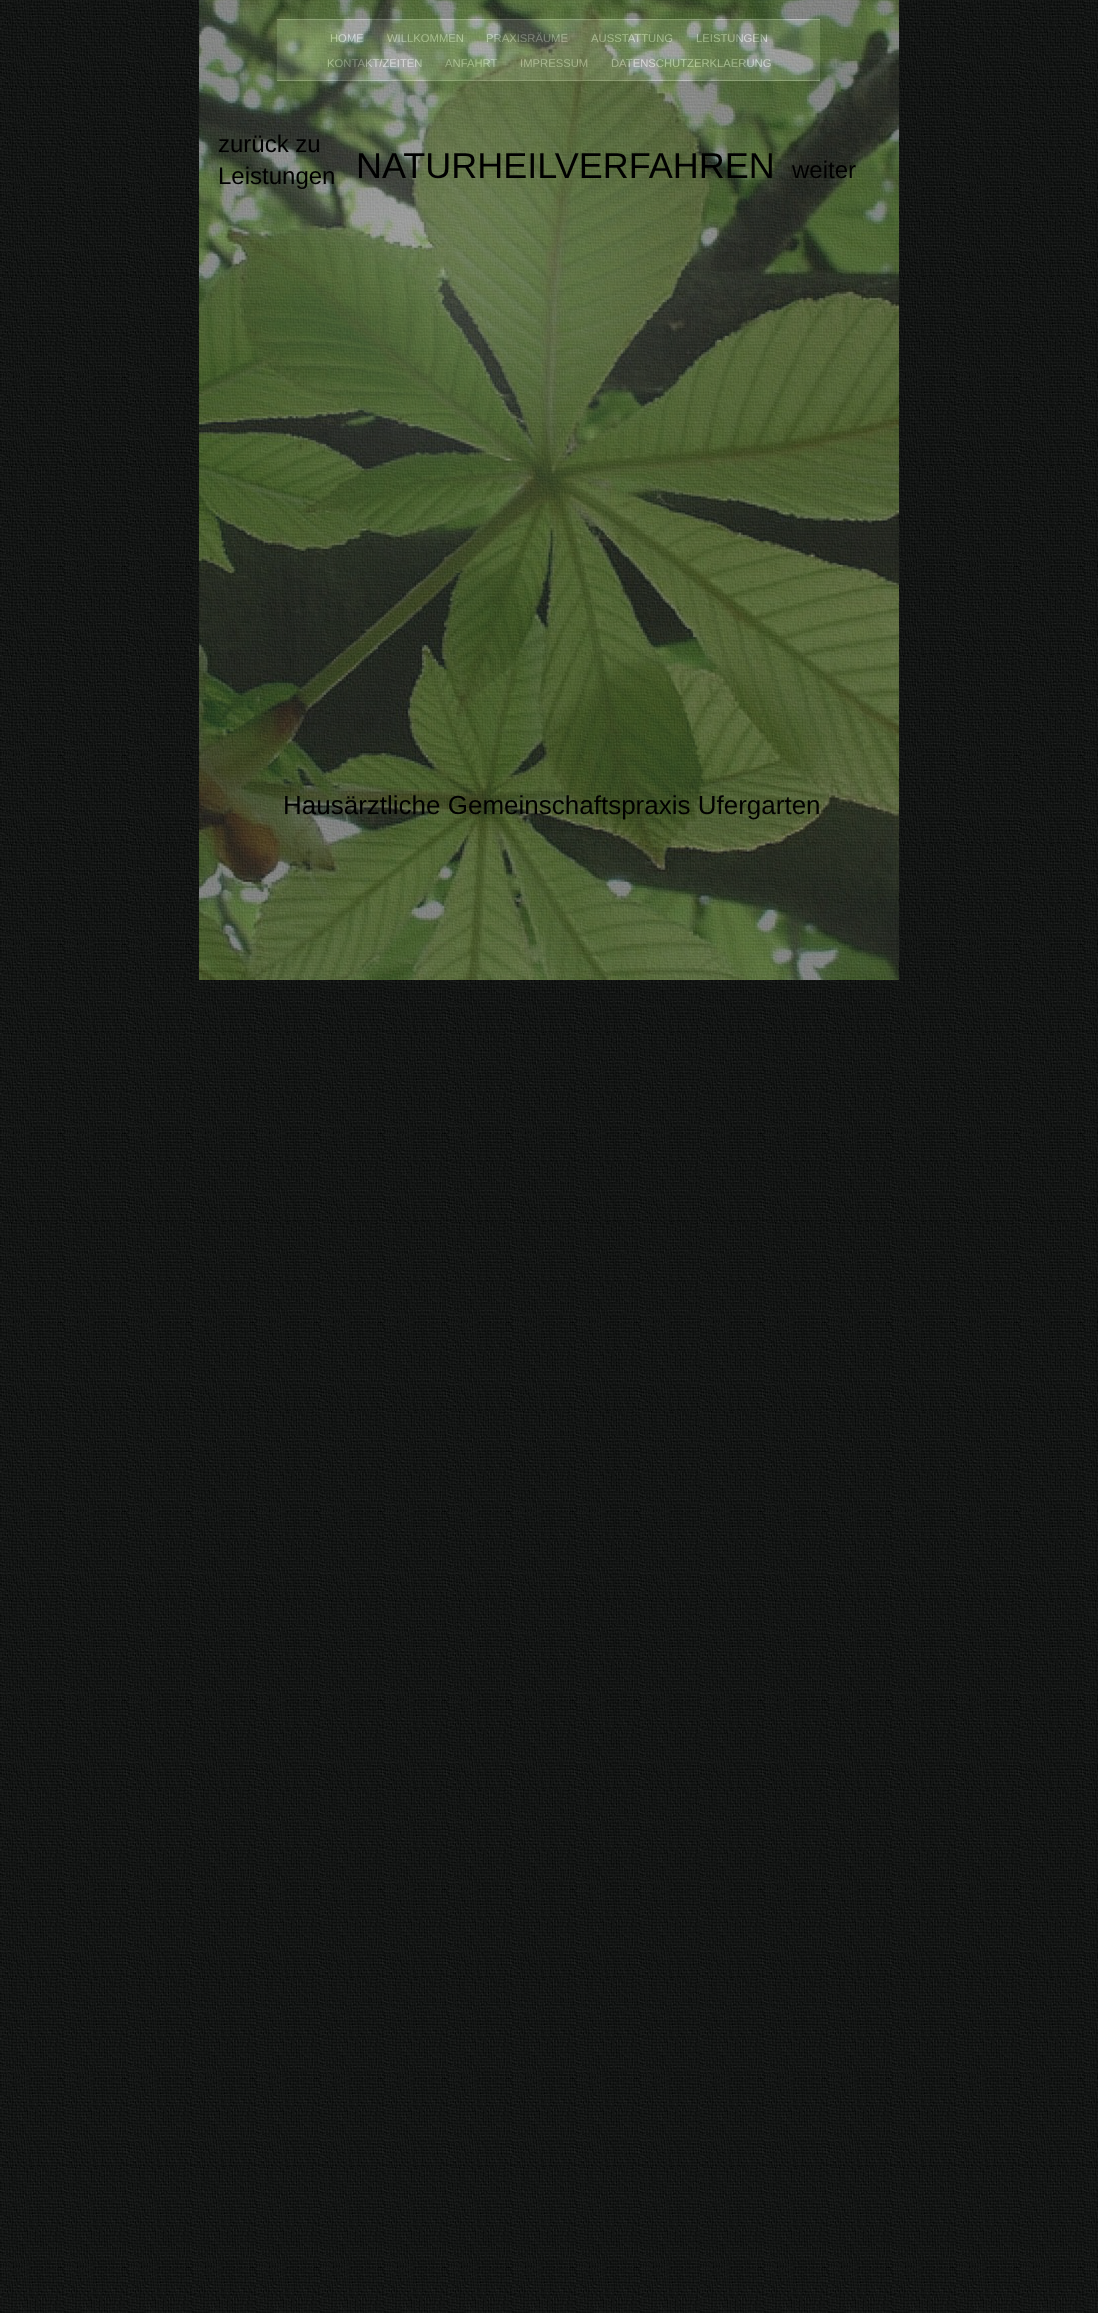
<svg xmlns="http://www.w3.org/2000/svg" width="1098" height="2313" viewBox="0 0 1098 2313">
  <style>
    .t1 { font: 11.25px Liberation Sans; fill: #c1c1c1; }
    .t2 { font: 24px Liberation Sans; fill: #000; }
    .t3 { font: 36px Liberation Sans; fill: #000; }
    .t4 { font: 26px Liberation Sans; fill: #000; }
  </style>
  <rect width="100%" height="100%" fill="#fff"/>
  <image x="0" y="0" width="1098" height="2313" href="images/1.png"/>
  <image x="199" y="620" width="700" height="360" href="images/2.png"/>
  <image x="199" y="0" width="700" height="620" href="images/3.png"/>
  <rect x="277" y="20" width="543" height="60" fill="#ffffff33"/>
  <rect x="277" y="19" width="543" height="1" fill="#999"/>
  <rect x="277" y="80" width="543" height="1" fill="#999"/>
  <text x="330" y="42" class="t1">HOME</text>
  <text x="387" y="42" class="t1">WILLKOMMEN</text>
  <text x="486" y="42" class="t1">PRAXISRÄUME</text>
  <text x="591" y="42" class="t1">AUSSTATTUNG</text>
  <text x="696" y="42" class="t1">LEISTUNGEN</text>
  <text x="327" y="67" class="t1">KONTAKT/ZEITEN</text>
  <text x="445" y="67" class="t1">ANFAHRT</text>
  <text x="520" y="67" class="t1">IMPRESSUM</text>
  <text x="611" y="67" class="t1">DATENSCHUTZERKLAERUNG</text>
  <image x="199" y="0" width="700" height="980" href="images/4.png"/>
  <text x="218" y="152" class="t2">zurück zu</text>
  <text x="218" y="184" class="t2">Leistungen</text>
  <text x="356" y="178" class="t3">NATURHEILVERFAHREN</text>
  <text x="792" y="178" class="t2">weiter</text>
  <text x="283" y="814" class="t4">Hausärztliche Gemeinschaftspraxis Ufergarten</text>
</svg>
